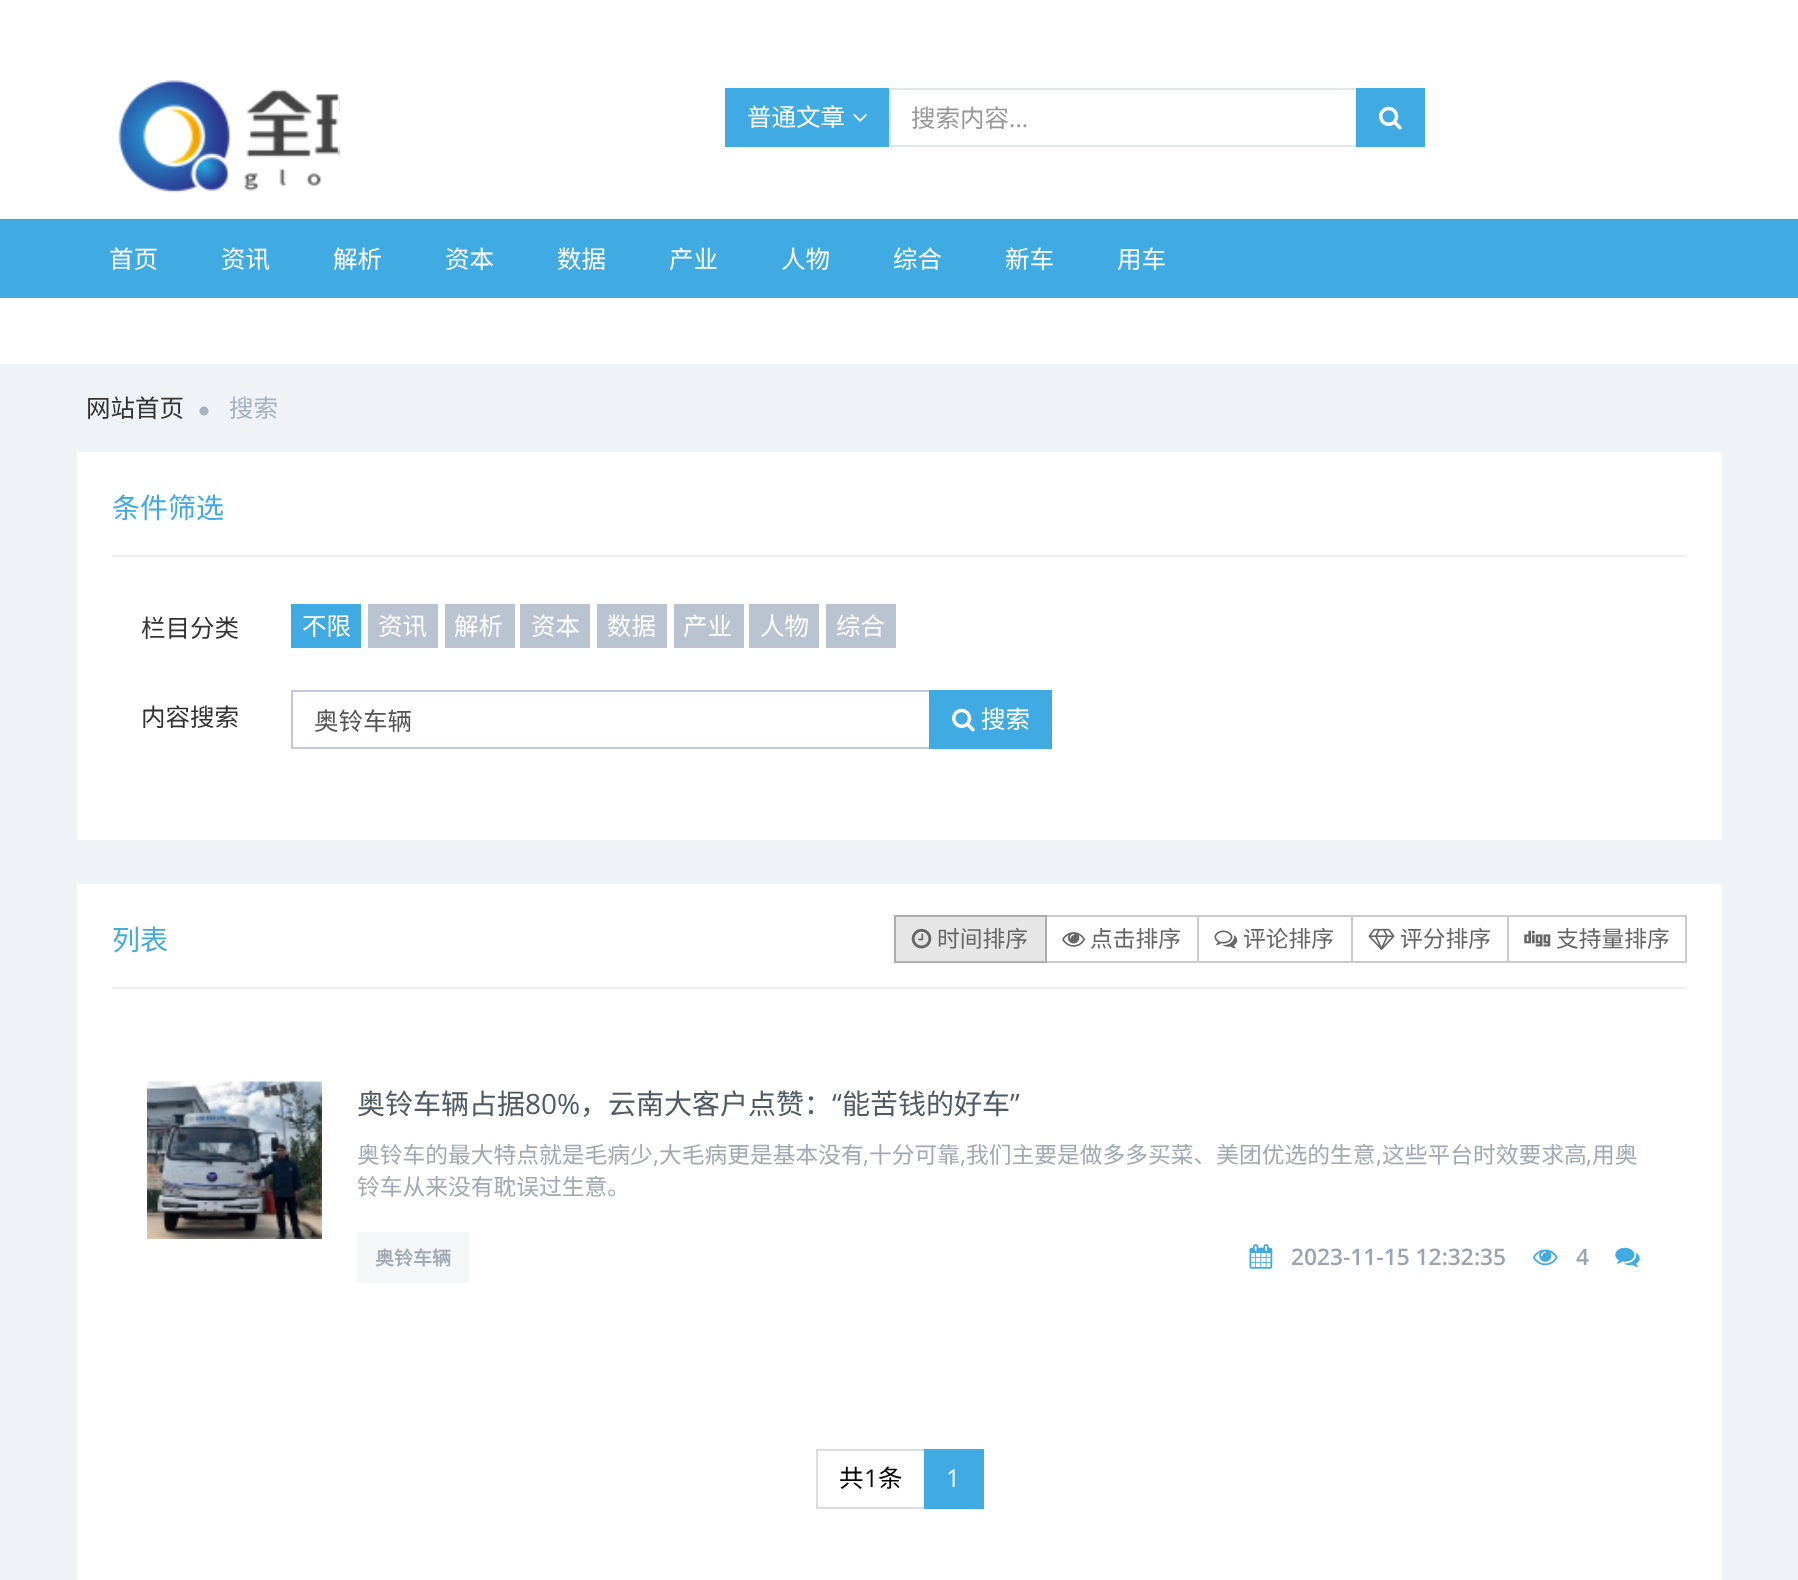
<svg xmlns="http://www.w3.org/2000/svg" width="1798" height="1580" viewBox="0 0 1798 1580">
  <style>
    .t1 { font: 24.5px Noto Sans CJK SC; fill: #fff; }
    .t2 { font: 24.5px Noto Sans CJK SC; fill: #999; }
    .t3 { font: 24.5px Open Sans; fill: #999; }
    .t4 { font: 24.5px Noto Sans CJK SC; fill: #333; }
    .t5 { font: 24.5px Noto Sans CJK SC; fill: #a7b2c0; }
    .t6 { font: 28px Noto Sans CJK SC; fill: #40aae2; }
    .t7 { font: 24.5px Noto Sans CJK SC; fill: #555; }
    .t8 { font: 22.75px Noto Sans CJK SC; fill: #666; }
    .t9 { font: 28px Noto Sans CJK SC; fill: #4e5a64; }
    .t10 { font: 28px Open Sans; fill: #4e5a64; }
    .t11 { font: 22.75px Noto Sans CJK SC; fill: #a0a9b4; }
    .t12 { font: 22.75px Open Sans; fill: #a0a9b4; }
    .t13 { font: bold 19px Noto Sans CJK SC; fill: #a0a9b4; }
    .t14 { font: 600 22.75px Open Sans; fill: #9aa5b2; }
    .t15 { font: 24.5px Noto Sans CJK SC; fill: #000; }
    .t16 { font: 24.5px Open Sans; fill: #000; }
    .t17 { font: 24.5px Open Sans; fill: #fff; }
  </style>
  <rect width="100%" height="100%" fill="#fff"/>
  <image x="118" y="80" width="222" height="113" href="images/1.png"/>
  <rect x="725" y="88" width="164" height="59" fill="#40aae2"/>
  <text x="747" y="126" class="t1">普通文章</text>
  <image x="853" y="114" width="14" height="8" href="images/2.png"/>
  <rect x="890" y="89" width="467" height="57" fill="none" stroke="#e1e5ec" stroke-width="2"/>
  <text x="911" y="127" class="t2">搜索内容</text>
  <text x="1009" y="127" class="t3">...</text>
  <rect x="1356" y="88" width="69" height="59" fill="#40aae2"/>
  <image x="1379" y="106" width="23" height="24" href="images/3.png"/>
  <rect x="0" y="219" width="1798" height="79" fill="#40aae2"/>
  <text x="109" y="268" class="t1">首页</text>
  <text x="221" y="268" class="t1">资讯</text>
  <text x="333" y="268" class="t1">解析</text>
  <text x="445" y="268" class="t1">资本</text>
  <text x="557" y="268" class="t1">数据</text>
  <text x="669" y="268" class="t1">产业</text>
  <text x="781" y="268" class="t1">人物</text>
  <text x="893" y="268" class="t1">综合</text>
  <text x="1005" y="268" class="t1">新车</text>
  <text x="1117" y="268" class="t1">用车</text>
  <rect x="0" y="364" width="1798" height="1216" fill="#eff3f8"/>
  <text x="86" y="417" class="t4">网站首页</text>
  <image x="199" y="406" width="10" height="10" href="images/4.png"/>
  <text x="229" y="417" class="t5">搜索</text>
  <rect x="77" y="452" width="1645" height="388" fill="#fff"/>
  <rect x="112" y="555" width="1575" height="2" fill="#eee"/>
  <text x="112" y="518" class="t6">条件筛选</text>
  <text x="141" y="637" class="t4">栏目分类</text>
  <rect x="291" y="604" width="70" height="44" fill="#40aae2"/>
  <text x="302" y="635" class="t1">不限</text>
  <rect x="368" y="604" width="70" height="44" fill="#bac3d0"/>
  <text x="378" y="635" class="t1">资讯</text>
  <rect x="445" y="604" width="70" height="44" fill="#bac3d0"/>
  <text x="454" y="635" class="t1">解析</text>
  <rect x="520" y="604" width="70" height="44" fill="#bac3d0"/>
  <text x="531" y="635" class="t1">资本</text>
  <rect x="597" y="604" width="70" height="44" fill="#bac3d0"/>
  <text x="607" y="635" class="t1">数据</text>
  <rect x="674" y="604" width="70" height="44" fill="#bac3d0"/>
  <text x="683" y="635" class="t1">产业</text>
  <rect x="749" y="604" width="70" height="44" fill="#bac3d0"/>
  <text x="760" y="635" class="t1">人物</text>
  <rect x="826" y="604" width="70" height="44" fill="#bac3d0"/>
  <text x="836" y="635" class="t1">综合</text>
  <text x="141" y="726" class="t4">内容搜索</text>
  <rect x="292" y="691" width="638" height="57" fill="none" stroke="#c2cad8" stroke-width="2"/>
  <text x="314" y="730" class="t7">奥铃车辆</text>
  <rect x="929" y="690" width="123" height="59" fill="#40aae2"/>
  <image x="952" y="708" width="23" height="24" href="images/3.png"/>
  <text x="981" y="728" class="t1">搜索</text>
  <rect x="77" y="884" width="1645" height="696" fill="#fff"/>
  <rect x="112" y="987" width="1575" height="2" fill="#eee"/>
  <text x="112" y="950" class="t6">列表</text>
  <rect x="1046" y="916" width="152" height="46" fill="none" stroke="#ccc" stroke-width="2"/>
  <rect x="895" y="916" width="151" height="46" fill="#e6e6e6" stroke="#adadad" stroke-width="2"/>
  <image x="911" y="928" width="21" height="21" href="images/5.png"/>
  <text x="937" y="947" class="t8">时间排序</text>
  <image x="1062" y="932" width="23" height="15" href="images/6.png"/>
  <text x="1090" y="947" class="t8">点击排序</text>
  <rect x="1198" y="916" width="154" height="46" fill="none" stroke="#ccc" stroke-width="2"/>
  <image x="1214" y="930" width="24" height="19" href="images/7.png"/>
  <text x="1243" y="947" class="t8">评论排序</text>
  <rect x="1352" y="916" width="156" height="46" fill="none" stroke="#ccc" stroke-width="2"/>
  <image x="1368" y="928" width="27" height="22" href="images/8.png"/>
  <text x="1400" y="947" class="t8">评分排序</text>
  <rect x="1508" y="916" width="178" height="46" fill="none" stroke="#ccc" stroke-width="2"/>
  <image x="1524" y="930" width="27" height="17" href="images/9.png"/>
  <text x="1556" y="947" class="t8">支持量排序</text>
  <image x="147" y="1081" width="175" height="158" href="images/10.png"/>
  <text x="357" y="1114" class="t9">奥铃车辆占据</text>
  <text x="525" y="1114" class="t10">80%</text>
  <text x="580" y="1114" class="t9">，云南大客户点赞：</text>
  <text x="832" y="1114" class="t10">“</text>
  <text x="842" y="1114" class="t9">能苦钱的好车</text>
  <text x="1010" y="1114" class="t10">”</text>
  <text x="357" y="1163" class="t11">奥铃车的最大特点就是毛病少</text>
  <text x="653" y="1163" class="t12">,</text>
  <text x="659" y="1163" class="t11">大毛病更是基本没有</text>
  <text x="863" y="1163" class="t12">,</text>
  <text x="869" y="1163" class="t11">十分可靠</text>
  <text x="960" y="1163" class="t12">,</text>
  <text x="966" y="1163" class="t11">我们主要是做多多买菜、美团优选的生意</text>
  <text x="1376" y="1163" class="t12">,</text>
  <text x="1382" y="1163" class="t11">这些平台时效要求高</text>
  <text x="1586" y="1163" class="t12">,</text>
  <text x="1592" y="1163" class="t11">用奥</text>
  <text x="357" y="1195" class="t11">铃车从来没有耽误过生意。</text>
  <rect x="357" y="1232" width="112" height="51" fill="#f4f6f8"/>
  <text x="375" y="1265" class="t13">奥铃车辆</text>
  <image x="1249" y="1244" width="24" height="25" href="images/11.png"/>
  <text x="1291" y="1265" class="t14">2023-11-15 12:32:35</text>
  <image x="1533" y="1249" width="25" height="17" href="images/12.png"/>
  <text x="1576" y="1265" class="t14">4</text>
  <image x="1615" y="1247" width="25" height="20" href="images/13.png"/>
  <rect x="817" y="1450" width="108" height="58" fill="none" stroke="#ddd" stroke-width="2"/>
  <text x="839" y="1487" class="t15">共</text>
  <text x="864" y="1487" class="t16">1</text>
  <text x="878" y="1487" class="t15">条</text>
  <rect x="924" y="1449" width="60" height="60" fill="#40aae2"/>
  <text x="946" y="1487" class="t17">1</text>
</svg>
